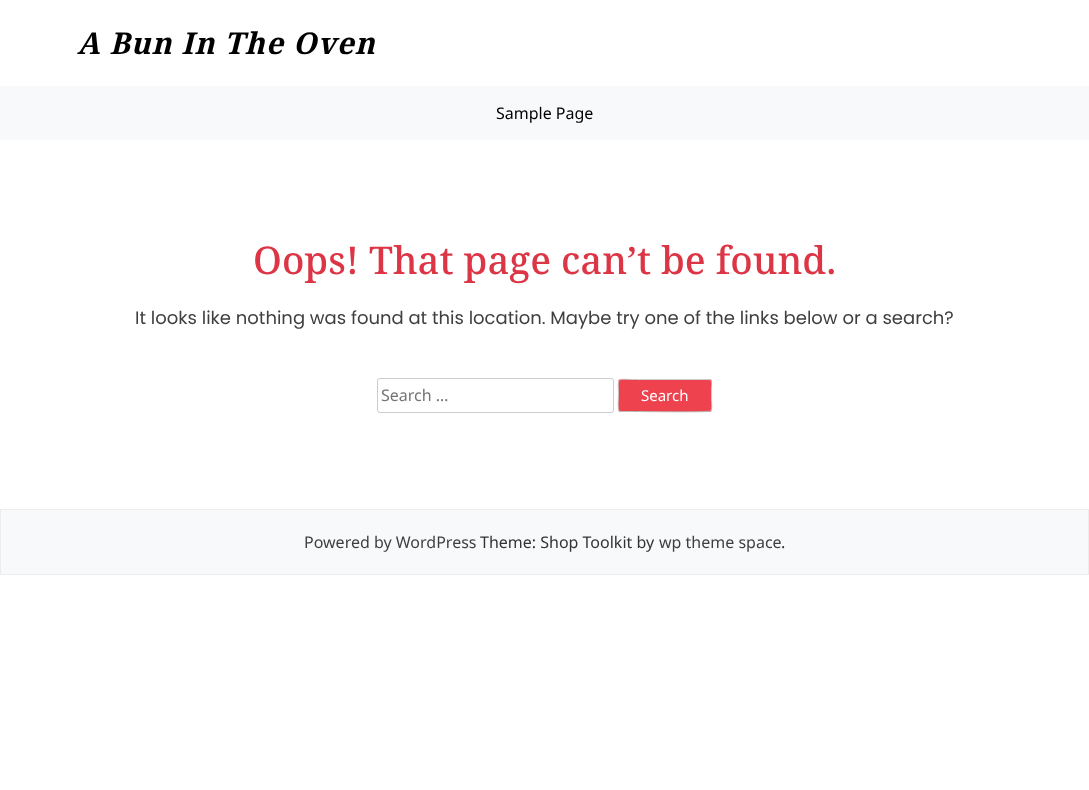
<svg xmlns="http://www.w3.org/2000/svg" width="1089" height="790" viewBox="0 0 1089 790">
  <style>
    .t1 { font: italic bold 30px Noto Serif; letter-spacing: 1px; fill: #000; }
    .t2 { font: 16px Noto Sans; fill: #000; }
    .t3 { font: 500 38.3px Noto Serif; fill: #dc3545; }
    .t4 { font: 18px Poppins; fill: #3f3f3f; }
    .t5 { font: 16px Noto Sans; fill: #757575; }
    .t6 { font: 15px Noto Sans; fill: #fff; }
    .t7 { font: 16px Noto Sans; fill: #3f3f3f; }
    .t8 { font: 16px Noto Sans; fill: #333; }
  </style>
  <rect width="100%" height="100%" fill="#fff"/>
  <text x="77" y="54" class="t1">A Bun In The Oven</text>
  <rect x="0" y="86" width="1089" height="54" fill="#f8f9fa"/>
  <text x="496" y="119" class="t2">Sample Page</text>
  <text x="253" y="274" class="t3">Oops! That page can’t be found.</text>
  <text x="135" y="324" class="t4">It looks like nothing was found at this location. Maybe try one of the links below or a search?</text>
  <rect x="377.5" y="378.5" width="236" height="34" rx="2.5" fill="none" stroke="#ccc"/>
  <text x="381" y="401" class="t5">Search …</text>
  <rect x="618" y="379" width="94" height="33" rx="3" fill="#ee434e"/>
  <path d="M711 411H710.5C708.5 412.5 643.5 411.5 635.5 411.5H621L619 411" fill="none" stroke="#bbb"/>
  <path d="M619 411C617.5 409 618.5 398 618.5 395.5C618.5 376 615 379.5 635.5 379.5H709C712.5 379.5 711.5 384.5 711.5 386.5V400C711.5 402 712.5 409 711 411" fill="none" stroke="#ccc"/>
  <text x="641" y="401" class="t6">Search</text>
  <rect x="0.5" y="509.5" width="1088" height="65" fill="#f8f9fa" stroke="#ededed"/>
  <text x="304" y="548" class="t7">Powered by WordPress</text>
  <text x="480" y="548" class="t8">Theme: Shop Toolkit by</text>
  <text x="659" y="548" class="t7">wp theme space</text>
  <text x="781" y="548" class="t8">.</text>
</svg>
